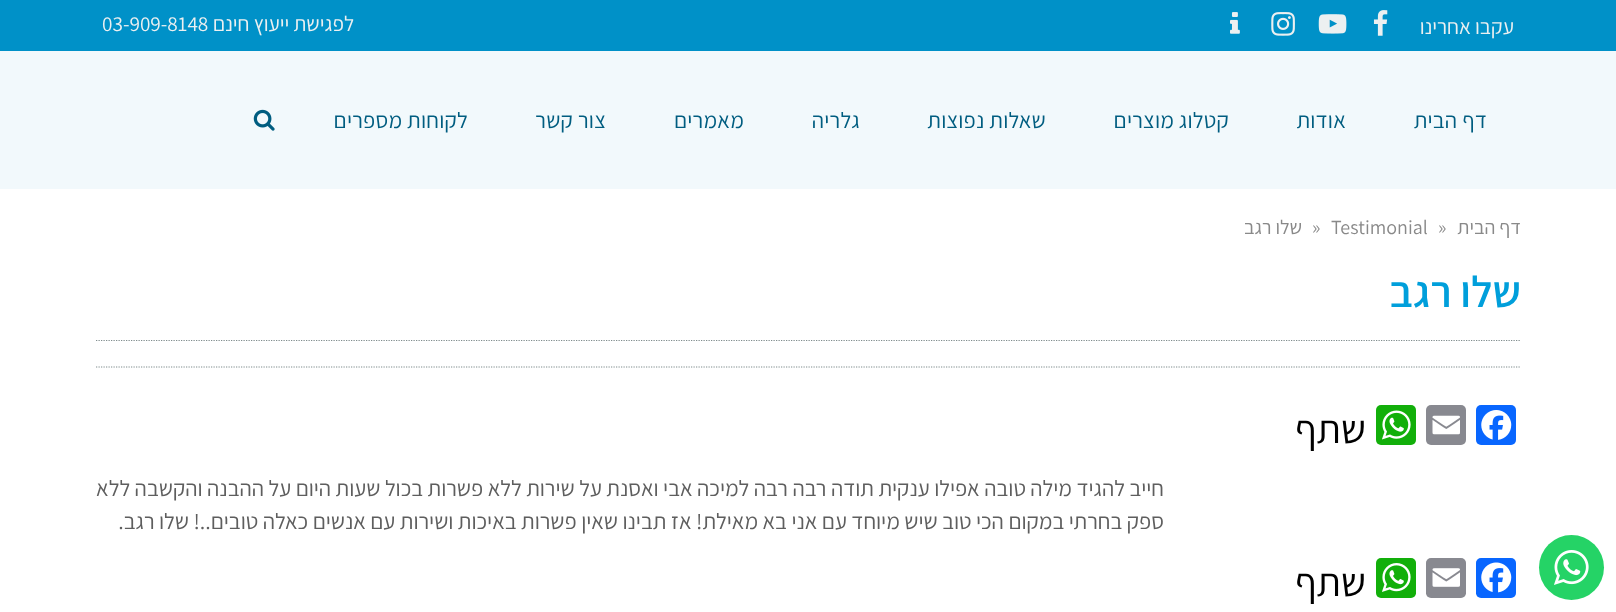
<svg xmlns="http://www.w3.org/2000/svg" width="1616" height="612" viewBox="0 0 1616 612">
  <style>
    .t1 { font: 21.25px Assistant; direction: rtl; fill: #ecf0f1; }
    .t2 { font: 21.25px Assistant; fill: #ecf0f1; }
    .t3 { font: 22.5px Assistant; letter-spacing: 0.25px; direction: rtl; fill: #005d80; }
    .t4 { font: 20px Assistant; direction: rtl; fill: #898989; }
    .t5 { font: 20px Assistant; fill: #898989; }
    .t6 { font: 600 44px Assistant; direction: rtl; fill: #009fdb; }
    .t7 { font: 40px Assistant; direction: rtl; fill: #000; }
    .t8 { font: 22.5px Assistant; direction: rtl; fill: #5e5e5e; }
  </style>
  <rect width="100%" height="100%" fill="#fff"/>
  <circle cx="1571.5" cy="567.5" r="32.5" fill="#25d366"/>
  <image x="1554" y="550" width="35" height="35" href="images/1.png"/>
  <rect x="0" y="0" width="1616" height="51" fill="#0091c8"/>
  <text x="1514" y="34" class="t1">עקבו אחרינו</text>
  <image x="1373" y="10" width="15" height="26" href="images/2.png"/>
  <image x="1318" y="14" width="29" height="20" href="images/3.png"/>
  <image x="1271" y="12" width="24" height="24" href="images/4.png"/>
  <image x="1230" y="12" width="10" height="22" href="images/5.png"/>
  <text x="354" y="31" class="t1">לפגישת ייעוץ חינם</text>
  <text x="102" y="31" class="t2">03-909-8148</text>
  <rect x="0" y="51" width="1616" height="138" fill="#f2f9fc"/>
  <text x="1487" y="128" class="t3">דף הבית</text>
  <text x="1346" y="128" class="t3">אודות</text>
  <text x="1229" y="128" class="t3">קטלוג מוצרים</text>
  <text x="1046" y="128" class="t3">שאלות נפוצות</text>
  <text x="860" y="128" class="t3">גלריה</text>
  <text x="744" y="128" class="t3">מאמרים</text>
  <text x="606" y="128" class="t3">צור קשר</text>
  <text x="468" y="128" class="t3">לקוחות מספרים</text>
  <image x="253" y="109" width="22" height="22" href="images/6.png"/>
  <text x="1521" y="234" class="t4">דף הבית</text>
  <text x="1438" y="234" class="t5">»</text>
  <text x="1331" y="234" class="t5">Testimonial</text>
  <text x="1312" y="234" class="t5">»</text>
  <text x="1302" y="234" class="t4">שלו רגב</text>
  <text x="1521" y="307" class="t6">שלו רגב</text>
  <path d="M96 340.5H1521" fill="none" stroke="#7f8c8d" stroke-width="1.2" stroke-dasharray="1.25 1.25"/>
  <path d="M96 367H1521" fill="none" stroke="#7f8c8d" stroke-width="1.2" stroke-dasharray="1.25 1.25"/>
  <rect x="1476" y="405" width="40" height="40" rx="5" fill="#0866ff"/>
  <image x="1481" y="410" width="31" height="30" href="images/7.png"/>
  <rect x="1426" y="405" width="40" height="40" rx="5" fill="#888990"/>
  <image x="1432" y="415" width="28" height="20" href="images/8.png"/>
  <rect x="1376" y="405" width="40" height="40" rx="5" fill="#12af0a"/>
  <image x="1382" y="410" width="29" height="30" href="images/9.png"/>
  <text x="1366" y="443" class="t7">שתף</text>
  <text x="1164" y="496" class="t8">חייב להגיד מילה טובה אפילו ענקית תודה רבה רבה למיכה אבי ואסנת על שירות ללא פשרות בכול שעות היום על ההבנה והקשבה ללא</text>
  <text x="1164" y="529" class="t8">ספק בחרתי במקום הכי טוב שיש מיוחד עם אני בא מאילת! אז תבינו שאין פשרות באיכות ושירות עם אנשים כאלה טובים..!</text>
  <text x="189" y="529" class="t8">שלו רגב.</text>
  <rect x="1476" y="558" width="40" height="40" rx="5" fill="#0866ff"/>
  <image x="1481" y="562" width="31" height="31" href="images/10.png"/>
  <rect x="1426" y="558" width="40" height="40" rx="5" fill="#888990"/>
  <image x="1432" y="568" width="28" height="19" href="images/11.png"/>
  <rect x="1376" y="558" width="40" height="40" rx="5" fill="#12af0a"/>
  <image x="1382" y="563" width="29" height="29" href="images/12.png"/>
  <text x="1366" y="596" class="t7">שתף</text>
</svg>
